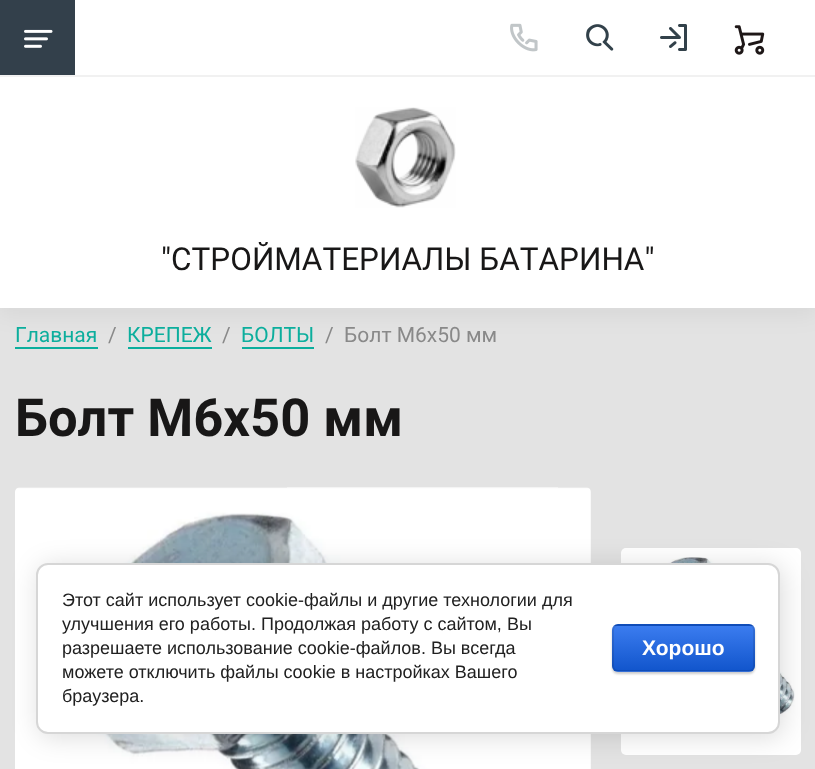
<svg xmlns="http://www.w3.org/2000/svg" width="815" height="769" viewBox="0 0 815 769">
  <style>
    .t1 { font: 31.5px Roboto; fill: #181717; }
    .t2 { font: 21px Roboto; fill: #0cae9d; }
    .t3 { font: 21px Roboto; fill: #898989; }
    .t4 { font: bold 52.5px Roboto; fill: #181717; }
    .t5 { font: 18px Liberation Sans; fill: #212121; }
    .t6 { font: bold 21px Liberation Sans; fill: #fff; }
  </style>
  <defs>
    <clipPath id="clip1"><rect x="612" y="624" width="143" height="48" rx="6"/></clipPath>
    <linearGradient id="g1" gradientUnits="userSpaceOnUse" x1="683" y1="581" x2="683" y2="626"><stop offset="0" stop-color="#3b7cef"/><stop offset="1" stop-color="#15c"/></linearGradient>
    <linearGradient id="g2" gradientUnits="userSpaceOnUse" x1="683" y1="626" x2="683" y2="671"><stop offset="0" stop-color="#3b7cef"/><stop offset="1" stop-color="#15c"/></linearGradient>
    <linearGradient id="g3" gradientUnits="userSpaceOnUse" x1="683" y1="671" x2="683" y2="716"><stop offset="0" stop-color="#3b7cef"/><stop offset="1" stop-color="#15c"/></linearGradient>
  </defs>
  <rect width="100%" height="100%" fill="#e3e3e3"/>
  <rect x="15" y="347" width="83" height="2" fill="#0cae9d"/>
  <rect x="128" y="347" width="84" height="2" fill="#0cae9d"/>
  <rect x="242" y="347" width="72" height="2" fill="#0cae9d"/>
  <rect x="0" y="8" width="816" height="307" fill="#0000000d" filter="blur(11px)"/>
  <rect x="0" y="0" width="815" height="308" fill="#fff"/>
  <rect x="0" y="0" width="75" height="75" fill="#33404b"/>
  <image x="24" y="29" width="29" height="19" href="images/1.png"/>
  <image x="510" y="23" width="28" height="29" href="images/2.png"/>
  <image x="586" y="24" width="28" height="27" href="images/3.png"/>
  <image x="660" y="24" width="27" height="27" href="images/4.png"/>
  <image x="734" y="25" width="31" height="30" href="images/5.png"/>
  <rect x="0" y="75" width="815" height="2" fill="#f1f1f1"/>
  <image x="355" y="107" width="101" height="101" href="images/6.png"/>
  <text x="161" y="270" class="t1">"СТРОЙМАТЕРИАЛЫ БАТАРИНА"</text>
  <text x="15" y="342" class="t2">Главная</text>
  <text x="108" y="342" class="t3">/</text>
  <text x="127" y="342" class="t2">КРЕПЕЖ</text>
  <text x="222" y="342" class="t3">/</text>
  <text x="241" y="342" class="t2">БОЛТЫ</text>
  <text x="325" y="342" class="t3" xml:space="preserve">/  Болт М6х50 мм</text>
  <text x="15" y="436" class="t4">Болт М6х50 мм</text>
  <image x="15" y="487" width="576" height="282" href="images/7.png"/>
  <rect x="621" y="548" width="180" height="207" rx="5" fill="#fff"/>
  <image x="641" y="557" width="154" height="160" href="images/8.png"/>
  <rect x="39" y="566" width="744" height="171" rx="12" fill="#00000024" filter="blur(13.5px)"/>
  <rect x="37" y="564" width="742" height="169" rx="11" fill="#fff" stroke="#d6d6d6" stroke-width="2"/>
  <text x="62" y="606" class="t5">Этот сайт использует cookie-файлы и другие технологии для</text>
  <text x="62" y="630" class="t5">улучшения его работы. Продолжая работу с сайтом, Вы</text>
  <text x="62" y="654" class="t5">разрешаете использование cookie-файлов. Вы всегда</text>
  <text x="62" y="678" class="t5">можете отключить файлы cookie в настройках Вашего</text>
  <text x="62" y="702" class="t5">браузера.</text>
  <rect x="612" y="626" width="143" height="48" rx="6" fill="#00000033" filter="blur(1px)"/>
  <g clip-path="url(#clip1)">
    <rect x="612" y="624" width="143" height="2" fill="url(#g1)"/>
    <rect x="612" y="626" width="143" height="45" fill="url(#g2)"/>
    <rect x="612" y="671" width="143" height="1" fill="url(#g3)"/>
  </g>
  <rect x="613" y="625" width="141" height="46" rx="5" fill="none" stroke="#0000001a" stroke-width="2"/>
  <text x="642" y="655" class="t6">Хорошо</text>
</svg>
